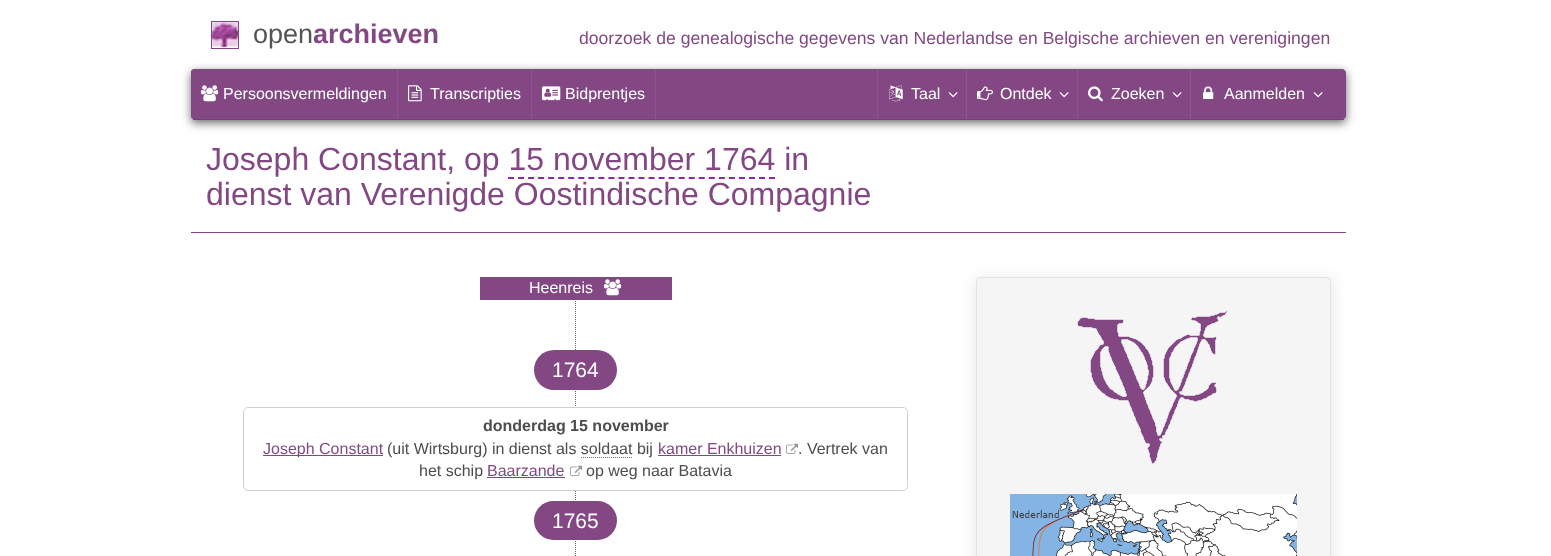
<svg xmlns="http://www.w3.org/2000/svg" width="1551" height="556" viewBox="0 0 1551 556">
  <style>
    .t1 { font: 27px Liberation Sans; fill: #555; }
    .t2 { font: bold 27px Liberation Sans; fill: #834884; }
    .t3 { font: 17.6px Liberation Sans; fill: #834884; }
    .t4 { font: 16px Liberation Sans; fill: #fff; }
    .t5 { font: 32px Liberation Sans; fill: #834884; }
    .t6 { font: 21px Liberation Sans; fill: #fff; }
    .t7 { font: bold 16px Liberation Sans; fill: #4d4d4d; }
    .t8 { font: 16px Liberation Sans; fill: #834884; }
    .t9 { font: 16px Liberation Sans; fill: #4d4d4d; }
  </style>
  <rect width="100%" height="100%" fill="#fff"/>
  <image x="212" y="22" width="26" height="26" href="images/1.png"/>
  <rect x="211.5" y="21.5" width="27" height="27" fill="none" stroke="#834884"/>
  <text x="253" y="43" class="t1">open</text>
  <text x="313" y="43" class="t2">archieven</text>
  <text x="579" y="44" class="t3">doorzoek de genealogische gegevens van Nederlandse en Belgische archieven en verenigingen</text>
  <rect x="191" y="72" width="1155" height="51" rx="4" fill="#323232ba" filter="blur(5px)"/>
  <path d="M195 69H1342C1344 69 1346 71 1346 73V116C1346 118 1344 119 1342 119H195C193 119 191 118 191 116V73C191 71 193 69 195 69Z" fill="#834884"/>
  <rect x="193" y="119" width="1151" height="1" fill="#733f74"/>
  <rect x="191" y="69" width="1140" height="50" rx="4" fill="#834884"/>
  <rect x="191" y="69" width="206" height="50" rx="4" fill="#834884"/>
  <image x="201" y="85" width="18" height="17" href="images/2.png"/>
  <text x="223" y="99" class="t4">Persoonsvermeldingen</text>
  <rect x="397" y="69" width="1" height="50" fill="#935195"/>
  <image x="408" y="85" width="14" height="17" href="images/3.png"/>
  <text x="430" y="99" class="t4">Transcripties</text>
  <rect x="531" y="69" width="1" height="50" fill="#935195"/>
  <image x="542" y="86" width="19" height="15" href="images/4.png"/>
  <text x="565" y="99" class="t4">Bidprentjes</text>
  <rect x="655" y="69" width="1" height="50" fill="#935195"/>
  <rect x="877" y="69" width="1" height="50" fill="#935195"/>
  <image x="889" y="85" width="14" height="17" href="images/5.png"/>
  <text x="911" y="99" class="t4">Taal</text>
  <image x="948" y="92" width="10" height="6" href="images/6.png"/>
  <rect x="966" y="69" width="1" height="50" fill="#935195"/>
  <image x="977" y="86" width="16" height="15" href="images/7.png"/>
  <text x="1000" y="99" class="t4">Ontdek</text>
  <image x="1059" y="92" width="10" height="6" href="images/6.png"/>
  <rect x="1077" y="69" width="1" height="50" fill="#935195"/>
  <image x="1088" y="86" width="15" height="16" href="images/8.png"/>
  <text x="1111" y="99" class="t4">Zoeken</text>
  <image x="1172" y="92" width="10" height="6" href="images/6.png"/>
  <rect x="1190" y="69" width="1" height="50" fill="#935195"/>
  <image x="1203" y="86" width="11" height="13" href="images/9.png"/>
  <text x="1224" y="99" class="t4">Aanmelden</text>
  <image x="1313" y="92" width="10" height="6" href="images/6.png"/>
  <rect x="191" y="232" width="1155" height="1" fill="#834884"/>
  <text x="206" y="170" class="t5">Joseph Constant, op 15 november 1764 in</text>
  <path d="M508 178H775" fill="none" stroke="#8e24aa" stroke-width="2" stroke-dasharray="6 4.04"/>
  <text x="206" y="205" class="t5">dienst van Verenigde Oostindische Compagnie</text>
  <image x="575" y="301" width="1" height="255" href="images/10.png"/>
  <rect x="480" y="277" width="192" height="23" fill="#834884"/>
  <text x="529" y="293" class="t4">Heenreis</text>
  <image x="604" y="279" width="18" height="17" href="images/2.png"/>
  <rect x="534" y="350" width="83" height="40" rx="20" fill="#834884"/>
  <text x="552" y="377" class="t6">1764</text>
  <rect x="243.5" y="407.5" width="664" height="83" rx="4.5" fill="#fff" stroke="#d0d0d0"/>
  <text x="483" y="431" class="t7">donderdag 15 november</text>
  <rect x="263" y="455" width="120" height="1" fill="#834884"/>
  <text x="263" y="454" class="t8">Joseph Constant</text>
  <text x="387" y="454" class="t9">(uit Wirtsburg) in dienst als soldaat bij</text>
  <text x="658" y="454" class="t8">kamer Enkhuizen</text>
  <rect x="658" y="455" width="123" height="1" fill="#834884"/>
  <image x="786" y="443" width="12" height="11" href="images/11.png"/>
  <text x="798" y="454" class="t9">. Vertrek van</text>
  <path d="M581 457.5H633" fill="none" stroke="#777" stroke-dasharray="1 1"/>
  <text x="419" y="476" class="t9">het schip</text>
  <text x="487" y="476" class="t8">Baarzande</text>
  <rect x="487" y="477" width="78" height="1" fill="#834884"/>
  <image x="570" y="465" width="12" height="11" href="images/11.png"/>
  <text x="586" y="476" class="t9">op weg naar Batavia</text>
  <rect x="534" y="501" width="83" height="39" rx="19.5" fill="#834884"/>
  <text x="552" y="528" class="t6">1765</text>
  <rect x="975" y="279" width="357" height="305" rx="5" fill="#0000001a" filter="blur(7.5px)"/>
  <rect x="976.5" y="277.5" width="354" height="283" rx="3.5" fill="#f5f5f5" stroke="#e3e3e3"/>
  <image x="1077" y="310" width="151" height="154" href="images/12.png"/>
  <image x="1010" y="494" width="287" height="62" href="images/13.png"/>
</svg>
